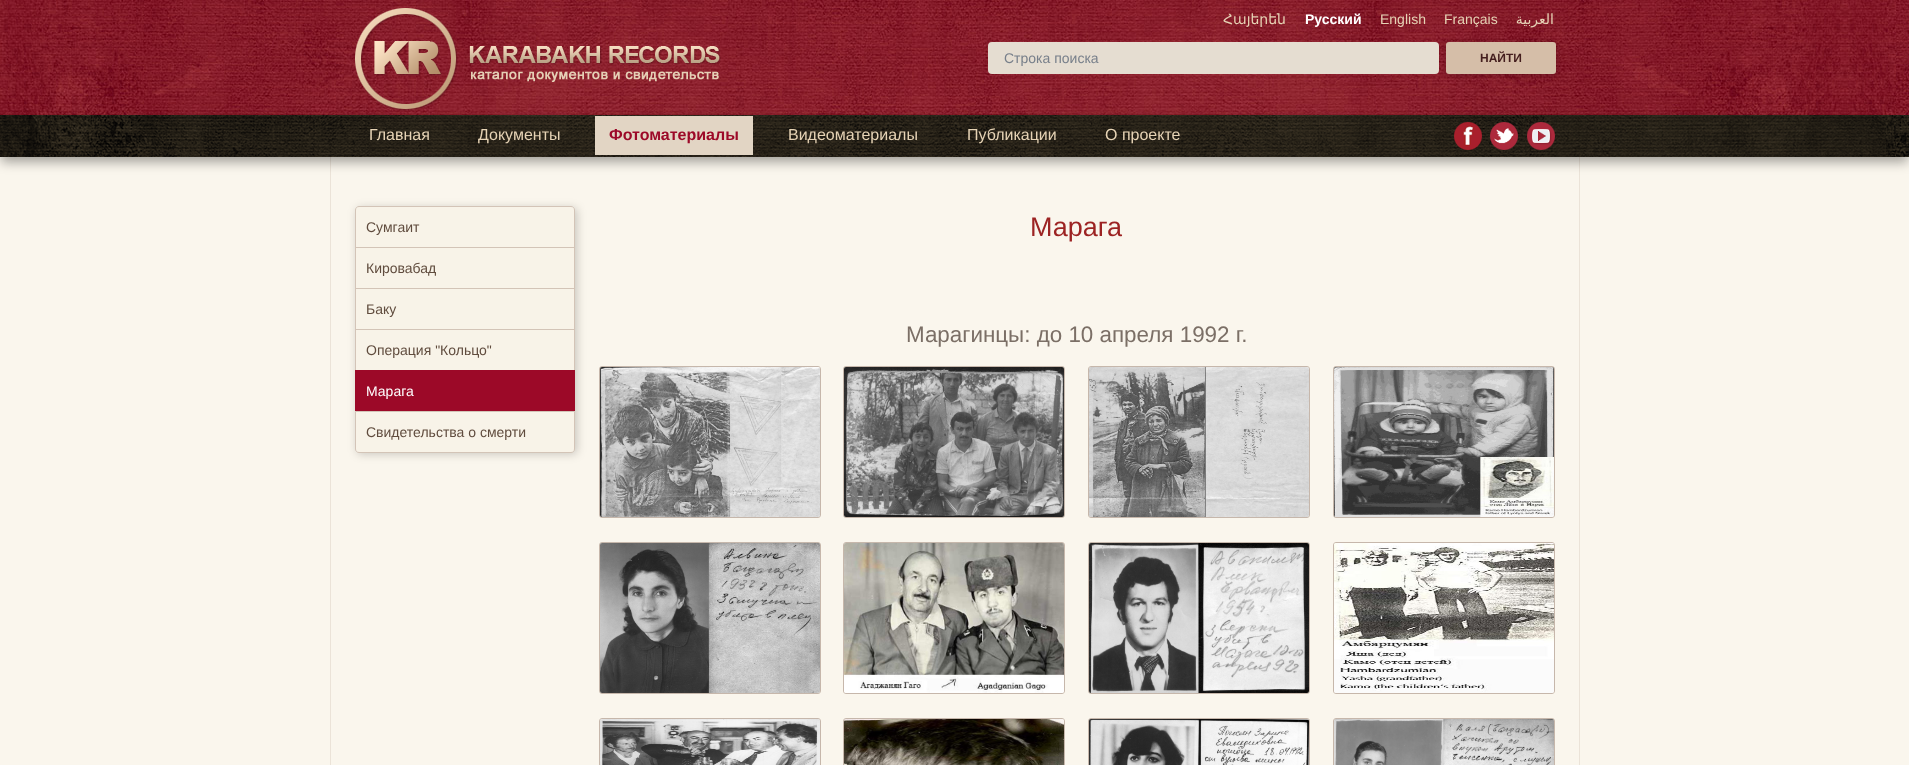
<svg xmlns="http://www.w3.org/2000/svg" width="1909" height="765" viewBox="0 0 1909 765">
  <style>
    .t1 { font: 14px DejaVu Sans; fill: #e6d3b5; }
    .t2 { font: bold 14px Liberation Sans; fill: #fff; }
    .t3 { font: 14px Liberation Sans; fill: #e6d3b5; }
    .t4 { font: 14px DejaVu Sans; direction: rtl; fill: #e6d3b5; }
    .t5 { font: 14px Liberation Sans; fill: #777f8a; }
    .t6 { font: bold 12px Liberation Sans; fill: #441e1e; }
    .t7 { font: 16px Liberation Sans; fill: #e6d3b5; }
    .t8 { font: bold 16px Liberation Sans; fill: #9c0928; }
    .t9 { font: 14px Liberation Sans; fill: #604c3e; }
    .t10 { font: 14px Liberation Sans; fill: #fff; }
    .t11 { font: 27px Liberation Sans; fill: #9c2323; }
    .t12 { font: 22.4px Liberation Sans; fill: #7b6f66; }
  </style>
  <rect width="100%" height="100%" fill="#faf6ed"/>
  <image x="0" y="0" width="1909" height="115" href="images/1.png"/>
  <image x="355" y="8" width="366" height="103" href="images/2.png"/>
  <text x="1223" y="24" class="t1">Հայերեն</text>
  <text x="1305" y="24" class="t2">Русский</text>
  <text x="1380" y="24" class="t3">English</text>
  <text x="1444" y="24" class="t3">Français</text>
  <text x="1554" y="24" class="t4">العربية</text>
  <rect x="988" y="42" width="451" height="32" rx="4" fill="#e5ddd1"/>
  <text x="1004" y="63" class="t5">Строка поиска</text>
  <rect x="1446" y="43" width="110" height="32" rx="3" fill="#00000033" filter="blur(3px)"/>
  <rect x="1446" y="42" width="110" height="32" rx="3" fill="#d5bea8"/>
  <text x="1480" y="62" class="t6">НАЙТИ</text>
  <rect x="1579" y="157" width="1" height="608" fill="#ebe3d8"/>
  <rect x="330" y="157" width="1" height="608" fill="#ebe3d8"/>
  <rect x="1" y="122" width="1907" height="40" fill="#00000059" filter="blur(6px)"/>
  <image x="0" y="115" width="1909" height="42" href="images/3.png"/>
  <text x="369" y="140" class="t7">Главная</text>
  <text x="478" y="140" class="t7">Документы</text>
  <rect x="595" y="116" width="158" height="39" fill="#e2d5c4"/>
  <text x="609" y="140" class="t8">Фотоматериалы</text>
  <text x="788" y="140" class="t7">Видеоматериалы</text>
  <text x="967" y="140" class="t7">Публикации</text>
  <text x="1105" y="140" class="t7">О проекте</text>
  <image x="1454" y="122" width="28" height="28" href="images/4.png"/>
  <image x="1490" y="122" width="28" height="28" href="images/5.png"/>
  <image x="1527" y="122" width="28" height="28" href="images/6.png"/>
  <rect x="357" y="208" width="220" height="246" rx="4" fill="#00000033" filter="blur(5px)"/>
  <path d="M359 206.5H571C573 206.5 574.5 208 574.5 210V247.5H355.5V210C355.5 208 357 206.5 359 206.5Z" fill="#f8f3e8" stroke="#d3c4b7"/>
  <text x="366" y="232" class="t9">Сумгаит</text>
  <rect x="355.5" y="247.5" width="219" height="41" fill="#f8f3e8" stroke="#d3c4b7"/>
  <text x="366" y="273" class="t9">Кировабад</text>
  <rect x="355.5" y="288.5" width="219" height="41" fill="#f8f3e8" stroke="#d3c4b7"/>
  <text x="366" y="314" class="t9">Баку</text>
  <rect x="355.5" y="329.5" width="219" height="41" fill="#f8f3e8" stroke="#d3c4b7"/>
  <text x="366" y="355" class="t9">Операция "Кольцо"</text>
  <rect x="355" y="370" width="220" height="41" fill="#9c0928"/>
  <text x="366" y="396" class="t10">Марага</text>
  <path d="M355.5 411.5H574.5V449C574.5 451 573 452.5 571 452.5H359C357 452.5 355.5 451 355.5 449Z" fill="#f8f3e8" stroke="#d3c4b7"/>
  <text x="366" y="437" class="t9">Свидетельства о смерти</text>
  <text x="1030" y="236" class="t11">Марага</text>
  <text x="906" y="342" class="t12">Марагинцы: до 10 апреля 1992 г.</text>
  <rect x="599.5" y="366.5" width="221" height="151" rx="2.5" fill="none" stroke="#c6b7ab"/>
  <rect x="843.5" y="366.5" width="221" height="151" rx="2.5" fill="none" stroke="#c6b7ab"/>
  <rect x="1088.5" y="366.5" width="221" height="151" rx="2.5" fill="none" stroke="#c6b7ab"/>
  <rect x="1333.5" y="366.5" width="221" height="151" rx="2.5" fill="none" stroke="#c6b7ab"/>
  <image x="600" y="367" width="220" height="150" href="images/7.png"/>
  <image x="844" y="367" width="220" height="150" href="images/8.png"/>
  <image x="1089" y="367" width="220" height="150" href="images/9.png"/>
  <image x="1334" y="367" width="220" height="150" href="images/10.png"/>
  <rect x="599.5" y="542.5" width="221" height="151" rx="2.5" fill="none" stroke="#c6b7ab"/>
  <rect x="843.5" y="542.5" width="221" height="151" rx="2.5" fill="none" stroke="#c6b7ab"/>
  <rect x="1088.5" y="542.5" width="221" height="151" rx="2.5" fill="none" stroke="#c6b7ab"/>
  <rect x="1333.5" y="542.5" width="221" height="151" rx="2.5" fill="none" stroke="#c6b7ab"/>
  <image x="600" y="543" width="220" height="150" href="images/11.png"/>
  <image x="844" y="543" width="220" height="150" href="images/12.png"/>
  <image x="1089" y="543" width="220" height="150" href="images/13.png"/>
  <image x="1334" y="543" width="220" height="150" href="images/14.png"/>
  <rect x="599.5" y="718.5" width="221" height="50" rx="2.5" fill="none" stroke="#c6b7ab"/>
  <rect x="843.5" y="718.5" width="221" height="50" rx="2.5" fill="none" stroke="#c6b7ab"/>
  <rect x="1088.5" y="718.5" width="221" height="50" rx="2.5" fill="none" stroke="#c6b7ab"/>
  <rect x="1333.5" y="718.5" width="221" height="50" rx="2.5" fill="none" stroke="#c6b7ab"/>
  <image x="600" y="719" width="220" height="46" href="images/15.png"/>
  <image x="844" y="719" width="220" height="46" href="images/16.png"/>
  <image x="1089" y="719" width="220" height="46" href="images/17.png"/>
  <image x="1334" y="719" width="220" height="46" href="images/18.png"/>
</svg>
